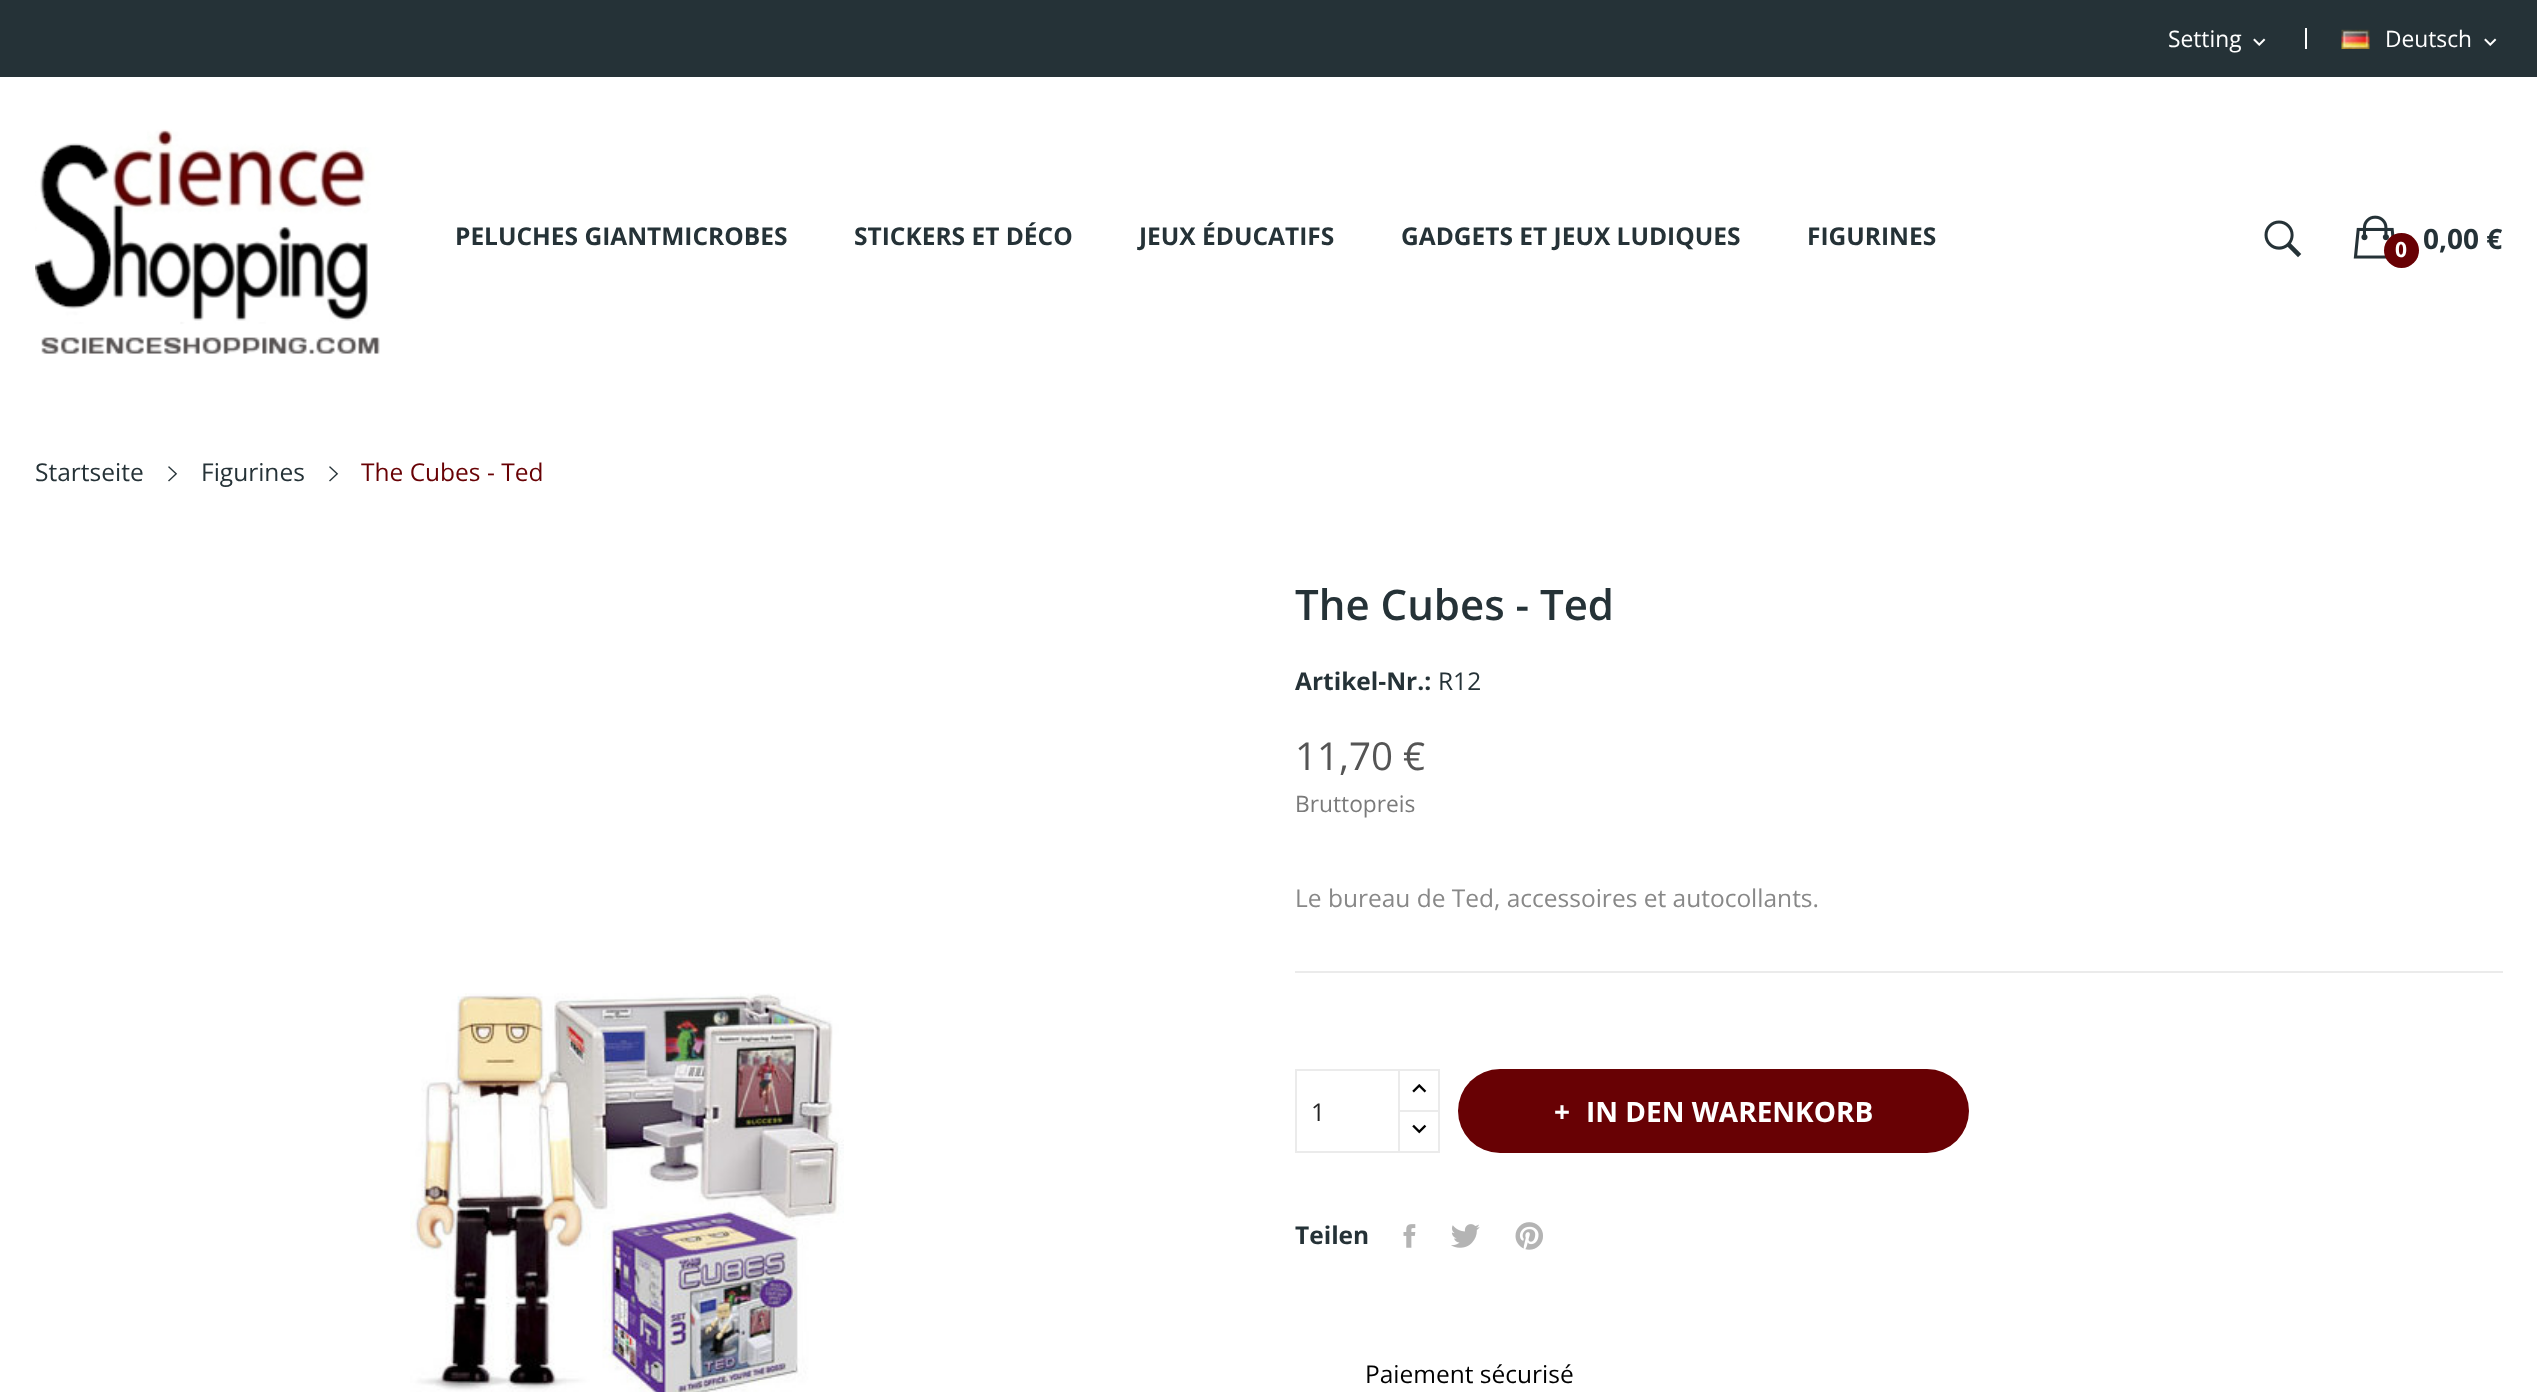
<svg xmlns="http://www.w3.org/2000/svg" width="2537" height="1392" viewBox="0 0 2537 1392">
  <style>
    .t1 { font: 22.75px Open Sans; fill: #fff; }
    .t2 { font: bold 24.5px Open Sans; fill: #253237; }
    .t3 { font: bold 21px Open Sans; fill: #fff; }
    .t4 { font: bold 28px Open Sans; fill: #253237; }
    .t5 { font: 24.5px Open Sans; fill: #253237; }
    .t6 { font: 24.5px Open Sans; fill: #680104; }
    .t7 { font: 600 42px Open Sans; fill: #253237; }
    .t8 { font: 38.5px Open Sans; fill: #555; }
    .t9 { font: 22.75px Open Sans; fill: #7a7a7a; }
    .t10 { font: 24.5px Open Sans; fill: #888; }
    .t11 { font: 24.5px Open Sans; fill: #232323; }
    .t12 { font: bold 28px Open Sans; fill: #fff; }
    .t13 { font: 24.5px Open Sans; fill: #000; }
  </style>
  <rect width="100%" height="100%" fill="#fff"/>
  <rect x="0" y="0" width="2537" height="77" fill="#253237"/>
  <text x="2168" y="47" class="t1">Setting</text>
  <image x="2253" y="38" width="13" height="8" href="images/1.png"/>
  <rect x="2305" y="28" width="2" height="21" fill="#fff"/>
  <image x="2341" y="29" width="29" height="20" href="images/2.png"/>
  <text x="2385" y="47" class="t1">Deutsch</text>
  <image x="2484" y="38" width="13" height="8" href="images/1.png"/>
  <image x="35" y="129" width="345" height="225" href="images/3.png"/>
  <text x="455" y="245" class="t2">PELUCHES GIANTMICROBES</text>
  <text x="854" y="245" class="t2">STICKERS ET DÉCO</text>
  <text x="1139" y="245" class="t2">JEUX ÉDUCATIFS</text>
  <text x="1401" y="245" class="t2">GADGETS ET JEUX LUDIQUES</text>
  <text x="1807" y="245" class="t2">FIGURINES</text>
  <image x="2264" y="220" width="38" height="38" href="images/4.png"/>
  <image x="2353" y="215" width="42" height="44" href="images/5.png"/>
  <circle cx="2401.5" cy="250.5" r="17.5" fill="#680104"/>
  <text x="2395" y="257" class="t3">0</text>
  <text x="2423" y="249" class="t4">0,00 €</text>
  <text x="35" y="481" class="t5">Startseite</text>
  <image x="168" y="466" width="10" height="16" href="images/6.png"/>
  <text x="201" y="481" class="t5">Figurines</text>
  <image x="329" y="466" width="10" height="16" href="images/6.png"/>
  <text x="361" y="481" class="t6">The Cubes - Ted</text>
  <image x="410" y="993" width="434" height="399" href="images/7.png"/>
  <text x="1295" y="620" class="t7">The Cubes - Ted</text>
  <text x="1295" y="690" class="t2">Artikel-Nr.:</text>
  <text x="1438" y="690" class="t5">R12</text>
  <text x="1295" y="770" class="t8">11,70 €</text>
  <text x="1295" y="812" class="t9">Bruttopreis</text>
  <rect x="1295" y="971" width="1208" height="2" fill="#ebebeb"/>
  <text x="1295" y="907" class="t10">Le bureau de Ted, accessoires et autocollants.</text>
  <rect x="1399" y="1070" width="40" height="42" fill="none" stroke="#ebebeb" stroke-width="2"/>
  <rect x="1400" y="1112" width="38" height="1" fill="#fff"/>
  <rect x="1399" y="1111" width="40" height="41" fill="none" stroke="#ebebeb" stroke-width="2"/>
  <rect x="1296" y="1070" width="103" height="82" fill="none" stroke="#ebebeb" stroke-width="2"/>
  <text x="1311" y="1121" class="t11">1</text>
  <image x="1412" y="1084" width="15" height="9" href="images/8.png"/>
  <image x="1412" y="1124" width="15" height="10" href="images/9.png"/>
  <rect x="1458" y="1069" width="511" height="84" rx="42" fill="#680104"/>
  <text x="1554" y="1122" class="t12">+</text>
  <text x="1586" y="1122" class="t12">IN DEN WARENKORB</text>
  <text x="1295" y="1244" class="t2">Teilen</text>
  <image x="1403" y="1224" width="13" height="24" href="images/10.png"/>
  <image x="1451" y="1224" width="29" height="24" href="images/11.png"/>
  <image x="1515" y="1222" width="28" height="28" href="images/12.png"/>
  <text x="1365" y="1383" class="t13">Paiement sécurisé</text>
</svg>
